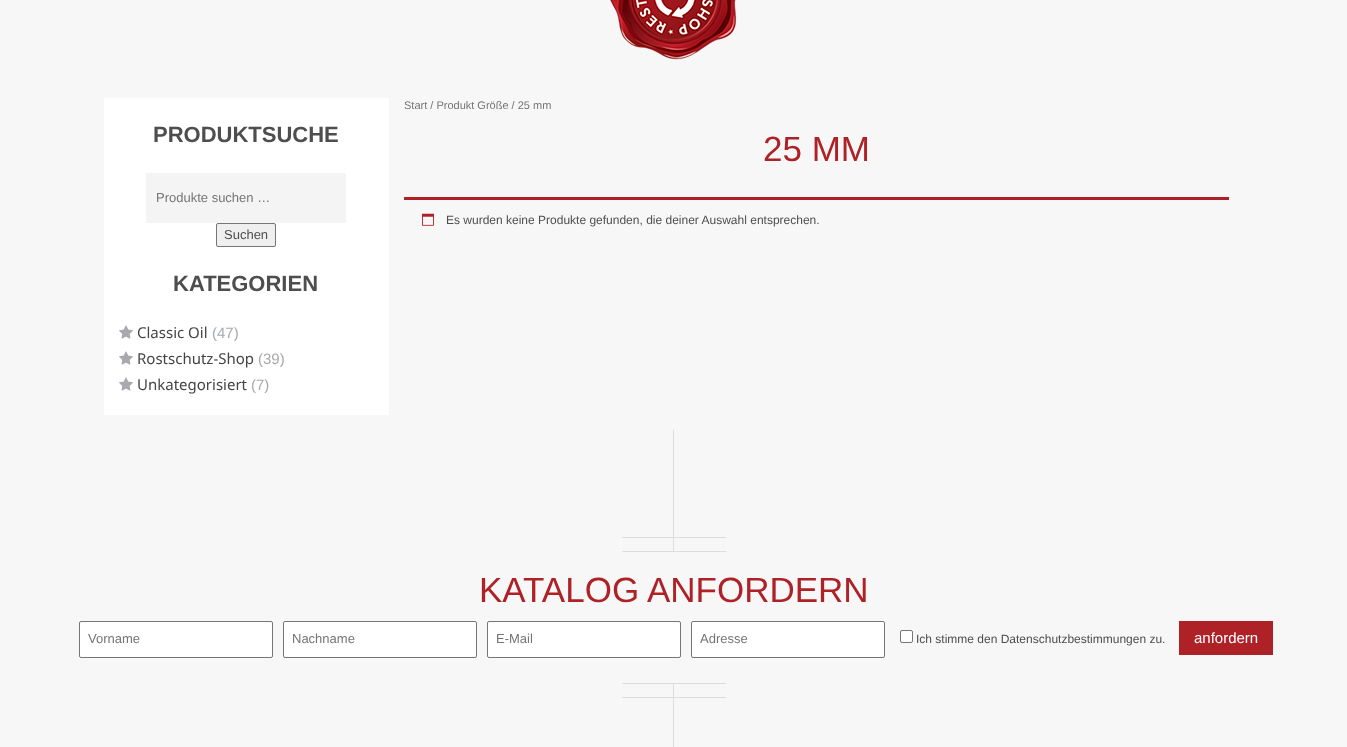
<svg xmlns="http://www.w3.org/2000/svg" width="1347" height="747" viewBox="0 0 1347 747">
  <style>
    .t1 { font: bold 22px Liberation Sans; fill: #4e4e4e; }
    .t2 { font: 13px Liberation Sans; fill: #757575; }
    .t3 { font: 13px Liberation Sans; fill: #4e4e4e; }
    .t4 { font: 15px Noto Sans; fill: #444; }
    .t5 { font: 15px Liberation Sans; fill: #a7a9ac; }
    .t6 { font: 11px Liberation Sans; fill: #757575; }
    .t7 { font: 35px Liberation Sans; fill: #ae2126; }
    .t8 { font: 12px Liberation Sans; fill: #4e4e4e; }
    .t9 { font: 15px Liberation Sans; fill: #fff; }
  </style>
  <rect width="100%" height="100%" fill="#f7f7f7"/>
  <image x="610" y="0" width="127" height="60" href="images/1.png"/>
  <rect x="104" y="98" width="285" height="317" fill="#fff"/>
  <text x="153" y="142" class="t1">PRODUKTSUCHE</text>
  <rect x="146" y="173" width="200" height="50" fill="#f4f4f4"/>
  <text x="156" y="202" class="t2">Produkte suchen …</text>
  <rect x="216.5" y="223.5" width="59" height="23" rx="1.5" fill="#efefef" stroke="#767676"/>
  <text x="224" y="239" class="t3">Suchen</text>
  <text x="173" y="291" class="t1">KATEGORIEN</text>
  <image x="119" y="325" width="14" height="14" href="images/2.png"/>
  <text x="137" y="338" class="t4">Classic Oil</text>
  <text x="212" y="338" class="t5">(47)</text>
  <image x="119" y="351" width="14" height="14" href="images/2.png"/>
  <text x="137" y="364" class="t4">Rostschutz-Shop</text>
  <text x="258" y="364" class="t5">(39)</text>
  <image x="119" y="377" width="14" height="14" href="images/2.png"/>
  <text x="137" y="390" class="t4">Unkategorisiert</text>
  <text x="251" y="390" class="t5">(7)</text>
  <text x="404" y="109" class="t6">Start / Produkt Größe / 25 mm</text>
  <text x="763" y="161" class="t7">25 MM</text>
  <rect x="404" y="197" width="825" height="3" fill="#ae2126"/>
  <image x="422" y="213" width="12" height="13" href="images/3.png"/>
  <text x="446" y="224" class="t8">Es wurden keine Produkte gefunden, die deiner Auswahl entsprechen.</text>
  <image x="622" y="430" width="104" height="317" href="images/4.png"/>
  <text x="479" y="602" class="t7">KATALOG ANFORDERN</text>
  <rect x="79.5" y="621.5" width="193" height="36" rx="1.5" fill="#fff" stroke="#767676"/>
  <text x="88" y="643" class="t2">Vorname</text>
  <rect x="283.5" y="621.5" width="193" height="36" rx="1.5" fill="#fff" stroke="#767676"/>
  <text x="292" y="643" class="t2">Nachname</text>
  <rect x="487.5" y="621.5" width="193" height="36" rx="1.5" fill="#fff" stroke="#767676"/>
  <text x="496" y="643" class="t2">E-Mail</text>
  <rect x="691.5" y="621.5" width="193" height="36" rx="1.5" fill="#fff" stroke="#767676"/>
  <text x="700" y="643" class="t2">Adresse</text>
  <rect x="900.5" y="630.5" width="12" height="12" rx="1.5" fill="#fff" stroke="#767676"/>
  <text x="916" y="643" class="t8">Ich stimme den Datenschutzbestimmungen zu.</text>
  <rect x="1179" y="621" width="94" height="34" fill="#ae2126"/>
  <text x="1194" y="643" class="t9">anfordern</text>
</svg>
